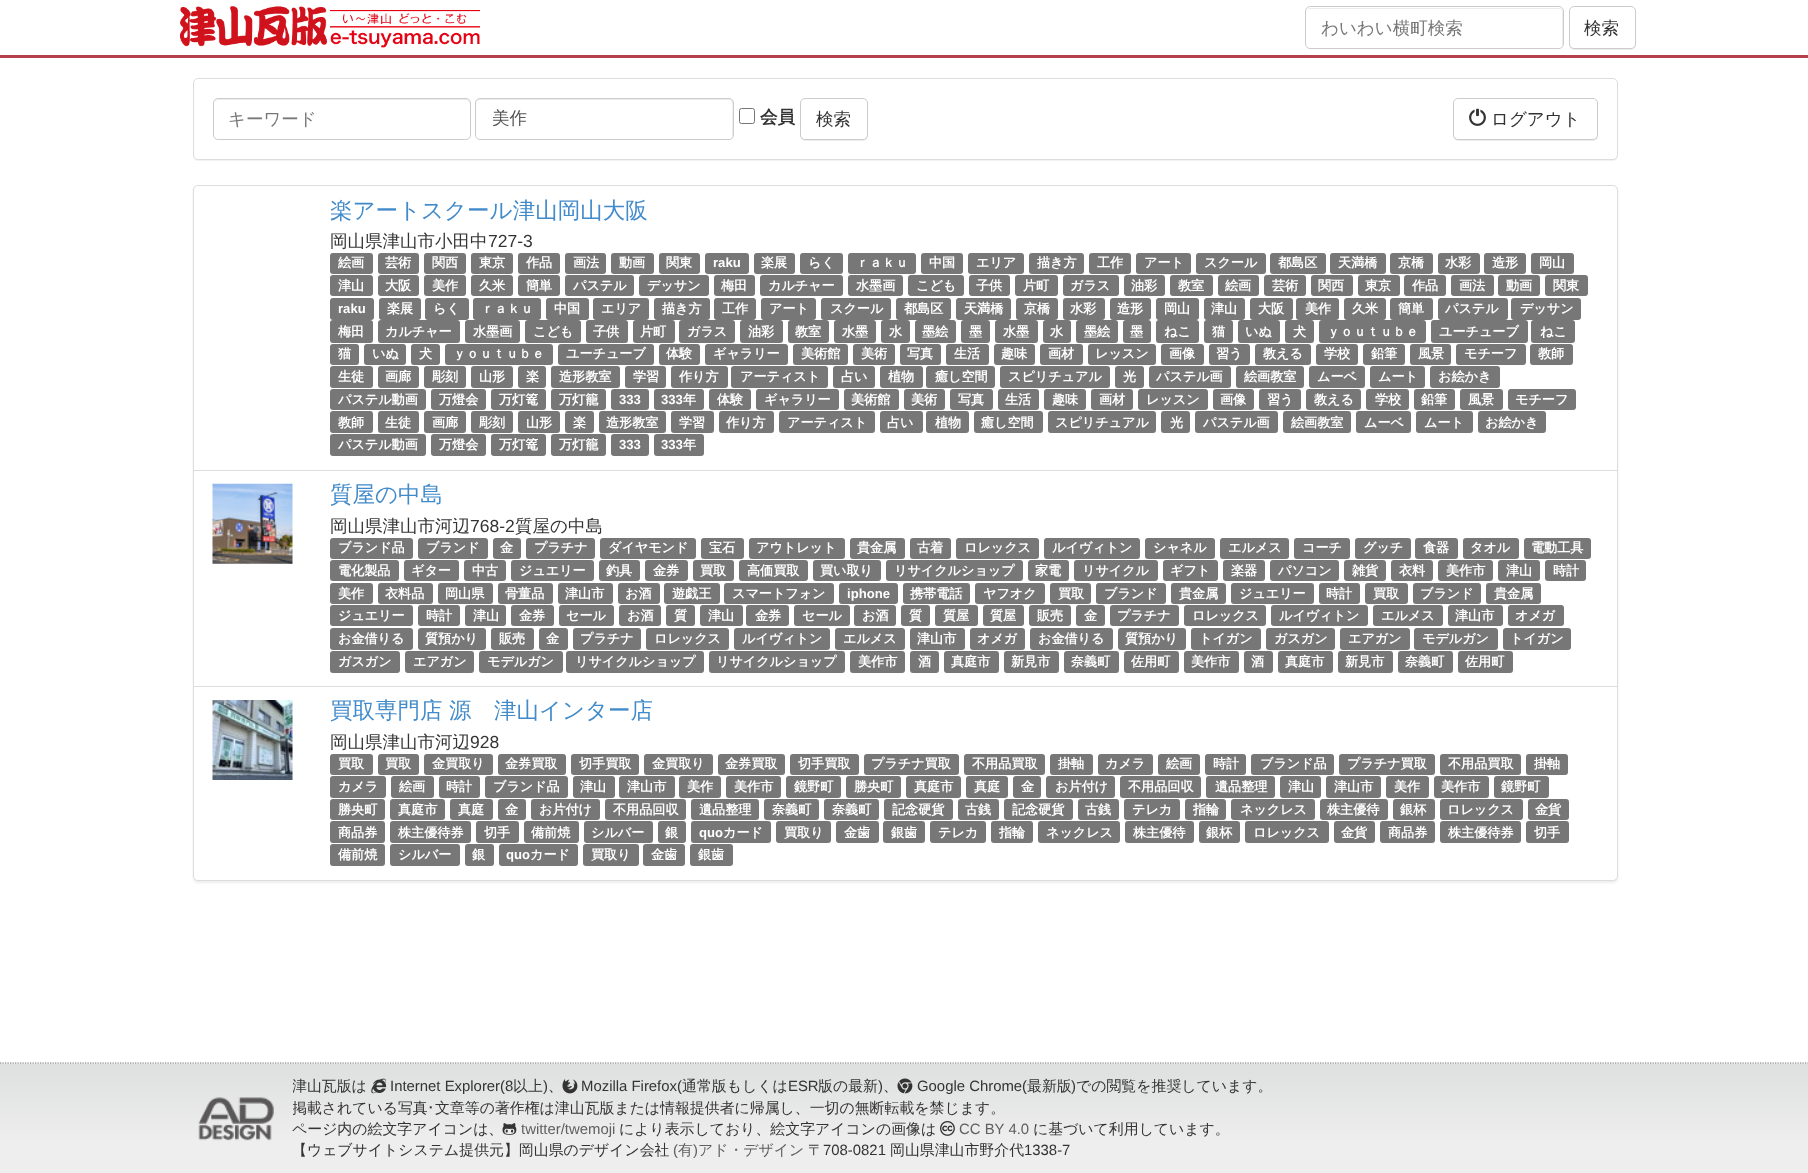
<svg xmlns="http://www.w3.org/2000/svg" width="1808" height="1173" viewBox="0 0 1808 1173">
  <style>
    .t1 { font: 500 17.5px WenQuanYi Zen Hei; fill: #777; }
    .t2 { font: 500 17.5px WenQuanYi Zen Hei; fill: #333; }
    .t3 { font: 500 17.5px WenQuanYi Zen Hei; fill: #555; }
    .t4 { font: bold 17.5px WenQuanYi Zen Hei; fill: #333; }
    .t5 { font: 500 22.5px WenQuanYi Zen Hei; fill: #428bca; }
    .t6 { font: 17.5px Liberation Sans; fill: #333; }
    .t7 { font: bold 13.1px WenQuanYi Zen Hei; fill: #fff; }
    .t8 { font: bold 13.1px Liberation Sans; fill: #fff; }
    .t9 { font: 500 14.9px WenQuanYi Zen Hei; fill: #333; }
    .t10 { font: 14.9px Liberation Sans; fill: #333; }
    .t11 { font: 14.9px IPAPGothic; fill: #333; }
    .t12 { font: 14.9px Liberation Sans; fill: #606060; }
    .t13 { font: 500 14.9px WenQuanYi Zen Hei; fill: #606060; }
  </style>
  <defs>
    <linearGradient id="g1" gradientUnits="userSpaceOnUse" x1="904" y1="1064" x2="904" y2="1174"><stop offset="0" stop-color="#dedfdf"/><stop offset="0.7" stop-color="#eeeeef"/></linearGradient>
    <clipPath id="clip1"><rect x="293" y="1076" width="980" height="85"/></clipPath>
  </defs>
  <rect width="100%" height="100%" fill="#fff"/>
  <rect x="0" y="55" width="1808" height="3" fill="#b5404b"/>
  <image x="180" y="6" width="300" height="42" href="images/1.png"/>
  <path d="M1310 9H1559C1561 9 1562 10 1562 12V47C1562 46 1563 45 1563 44V12C1563 10 1561 8 1559 8H1310C1308 8 1306 10 1306 12C1306 10 1308 9 1310 9Z" fill="#ececec"/>
  <rect x="1305.5" y="6.5" width="258" height="42" rx="4.5" fill="none" stroke="#ccc"/>
  <text x="1321" y="34" class="t1">わいわい横町検索</text>
  <rect x="1569" y="8" width="67" height="42" rx="5" fill="#00000012" filter="blur(0.5px)"/>
  <rect x="1569.5" y="6.5" width="66" height="42" rx="4.5" fill="#fff" stroke="#ccc"/>
  <text x="1584" y="34" class="t2">検索</text>
  <rect x="193" y="79" width="1425" height="82" rx="5" fill="#0000000d" filter="blur(0.5px)"/>
  <rect x="193.5" y="78.5" width="1424" height="81" rx="4.5" fill="#fff" stroke="#ddd"/>
  <path d="M218 100H467L469 102L470 104V103C470 101 468 99 466 99H218C216 99 214 101 214 103V104C214 102 215 100 218 100Z" fill="#ececec"/>
  <rect x="213.5" y="98.5" width="257" height="41" rx="4.5" fill="none" stroke="#ccc"/>
  <text x="228" y="125" class="t1">キーワード</text>
  <path d="M480 100H729C734 100 732 113 732 115V138C732 137 733 136 733 135V103C733 101 731 99 729 99H480C478 99 476 101 476 103V104C476 102 478 100 480 100Z" fill="#ececec"/>
  <rect x="475.5" y="98.5" width="258" height="41" rx="4.5" fill="none" stroke="#ccc"/>
  <text x="492" y="124" class="t3">美作</text>
  <rect x="739.5" y="108.5" width="15" height="15" rx="2" fill="none" stroke="#767676"/>
  <text x="760" y="123" class="t4">会員</text>
  <rect x="800" y="99" width="68" height="42" rx="5" fill="#00000012" filter="blur(0.5px)"/>
  <rect x="800.5" y="98.5" width="67" height="41" rx="4.5" fill="#fff" stroke="#ccc"/>
  <text x="816" y="125" class="t2">検索</text>
  <rect x="1453" y="99" width="145" height="42" rx="5" fill="#00000012" filter="blur(0.5px)"/>
  <rect x="1453.5" y="98.5" width="144" height="41" rx="4.5" fill="#fff" stroke="#ccc"/>
  <image x="1469" y="108" width="17" height="18" href="images/2.png"/>
  <text x="1491" y="125" class="t2">ログアウト</text>
  <rect x="193" y="186" width="1425" height="697" rx="5" fill="#00000012" filter="blur(1px)"/>
  <path d="M198 185.5H1613C1615.5 185.5 1617.5 187.5 1617.5 190V470.5H193.5V190C193.5 187.5 195.5 185.5 198 185.5Z" fill="#fff" stroke="#ddd"/>
  <text x="330" y="218" class="t5">楽アートスクール津山岡山大阪</text>
  <text x="330" y="247" class="t2">岡山県津山市小田中</text>
  <text x="488" y="247" class="t6">727-3</text>
  <rect x="330" y="253" width="43" height="21" rx="3" fill="#777"/>
  <text x="338" y="267" class="t7">絵画</text>
  <rect x="378" y="253" width="41" height="21" rx="3" fill="#777"/>
  <text x="385" y="267" class="t7">芸術</text>
  <rect x="424" y="253" width="42" height="21" rx="3" fill="#777"/>
  <text x="432" y="267" class="t7">関西</text>
  <rect x="471" y="253" width="42" height="21" rx="3" fill="#777"/>
  <text x="479" y="267" class="t7">東京</text>
  <rect x="518" y="253" width="42" height="21" rx="3" fill="#777"/>
  <text x="526" y="267" class="t7">作品</text>
  <rect x="565" y="253" width="41" height="21" rx="3" fill="#777"/>
  <text x="573" y="267" class="t7">画法</text>
  <rect x="611" y="253" width="43" height="21" rx="3" fill="#777"/>
  <text x="619" y="267" class="t7">動画</text>
  <rect x="659" y="253" width="41" height="21" rx="3" fill="#777"/>
  <text x="666" y="267" class="t7">関東</text>
  <rect x="705" y="253" width="44" height="21" rx="3" fill="#777"/>
  <text x="713" y="267" class="t8">raku</text>
  <rect x="754" y="253" width="41" height="21" rx="3" fill="#777"/>
  <text x="761" y="267" class="t7">楽展</text>
  <rect x="800" y="253" width="43" height="21" rx="3" fill="#777"/>
  <text x="808" y="267" class="t7">らく</text>
  <rect x="848" y="253" width="68" height="21" rx="3" fill="#777"/>
  <text x="856" y="267" class="t7">ｒａｋｕ</text>
  <rect x="921" y="253" width="42" height="21" rx="3" fill="#777"/>
  <text x="929" y="267" class="t7">中国</text>
  <rect x="968" y="253" width="56" height="21" rx="3" fill="#777"/>
  <text x="976" y="267" class="t7">エリア</text>
  <rect x="1029" y="253" width="55" height="21" rx="3" fill="#777"/>
  <text x="1037" y="267" class="t7">描き方</text>
  <rect x="1089" y="253" width="42" height="21" rx="3" fill="#777"/>
  <text x="1097" y="267" class="t7">工作</text>
  <rect x="1136" y="253" width="55" height="21" rx="3" fill="#777"/>
  <text x="1144" y="267" class="t7">アート</text>
  <rect x="1196" y="253" width="70" height="21" rx="3" fill="#777"/>
  <text x="1204" y="267" class="t7">スクール</text>
  <rect x="1270" y="253" width="56" height="21" rx="3" fill="#777"/>
  <text x="1278" y="267" class="t7">都島区</text>
  <rect x="1330" y="253" width="56" height="21" rx="3" fill="#777"/>
  <text x="1338" y="267" class="t7">天満橋</text>
  <rect x="1390" y="253" width="43" height="21" rx="3" fill="#777"/>
  <text x="1398" y="267" class="t7">京橋</text>
  <rect x="1438" y="253" width="42" height="21" rx="3" fill="#777"/>
  <text x="1445" y="267" class="t7">水彩</text>
  <rect x="1484" y="253" width="42" height="21" rx="3" fill="#777"/>
  <text x="1492" y="267" class="t7">造形</text>
  <rect x="1531" y="253" width="43" height="21" rx="3" fill="#777"/>
  <text x="1539" y="267" class="t7">岡山</text>
  <rect x="330" y="275" width="43" height="21" rx="3" fill="#777"/>
  <text x="338" y="290" class="t7">津山</text>
  <rect x="378" y="275" width="41" height="21" rx="3" fill="#777"/>
  <text x="385" y="290" class="t7">大阪</text>
  <rect x="424" y="275" width="42" height="21" rx="3" fill="#777"/>
  <text x="432" y="290" class="t7">美作</text>
  <rect x="471" y="275" width="42" height="21" rx="3" fill="#777"/>
  <text x="479" y="290" class="t7">久米</text>
  <rect x="518" y="275" width="42" height="21" rx="3" fill="#777"/>
  <text x="526" y="290" class="t7">簡単</text>
  <rect x="565" y="275" width="69" height="21" rx="3" fill="#777"/>
  <text x="573" y="290" class="t7">パステル</text>
  <rect x="639" y="275" width="70" height="21" rx="3" fill="#777"/>
  <text x="647" y="290" class="t7">デッサン</text>
  <rect x="714" y="275" width="41" height="21" rx="3" fill="#777"/>
  <text x="721" y="290" class="t7">梅田</text>
  <rect x="760" y="275" width="83" height="21" rx="3" fill="#777"/>
  <text x="768" y="290" class="t7">カルチャー</text>
  <rect x="848" y="275" width="55" height="21" rx="3" fill="#777"/>
  <text x="856" y="290" class="t7">水墨画</text>
  <rect x="908" y="275" width="56" height="21" rx="3" fill="#777"/>
  <text x="916" y="290" class="t7">こども</text>
  <rect x="969" y="275" width="41" height="21" rx="3" fill="#777"/>
  <text x="976" y="290" class="t7">子供</text>
  <rect x="1015" y="275" width="43" height="21" rx="3" fill="#777"/>
  <text x="1023" y="290" class="t7">片町</text>
  <rect x="1063" y="275" width="56" height="21" rx="3" fill="#777"/>
  <text x="1070" y="290" class="t7">ガラス</text>
  <rect x="1124" y="275" width="41" height="21" rx="3" fill="#777"/>
  <text x="1131" y="290" class="t7">油彩</text>
  <rect x="1170" y="275" width="43" height="21" rx="3" fill="#777"/>
  <text x="1178" y="290" class="t7">教室</text>
  <rect x="1218" y="275" width="41" height="21" rx="3" fill="#777"/>
  <text x="1225" y="290" class="t7">絵画</text>
  <rect x="1264" y="275" width="42" height="21" rx="3" fill="#777"/>
  <text x="1272" y="290" class="t7">芸術</text>
  <rect x="1311" y="275" width="42" height="21" rx="3" fill="#777"/>
  <text x="1318" y="290" class="t7">関西</text>
  <rect x="1358" y="275" width="42" height="21" rx="3" fill="#777"/>
  <text x="1365" y="290" class="t7">東京</text>
  <rect x="1404" y="275" width="42" height="21" rx="3" fill="#777"/>
  <text x="1412" y="290" class="t7">作品</text>
  <rect x="1451" y="275" width="43" height="21" rx="3" fill="#777"/>
  <text x="1459" y="290" class="t7">画法</text>
  <rect x="1498" y="275" width="42" height="21" rx="3" fill="#777"/>
  <text x="1506" y="290" class="t7">動画</text>
  <rect x="1545" y="275" width="43" height="21" rx="3" fill="#777"/>
  <text x="1553" y="290" class="t7">関東</text>
  <rect x="330" y="298" width="44" height="22" rx="3" fill="#777"/>
  <text x="338" y="313" class="t8">raku</text>
  <rect x="379" y="298" width="42" height="22" rx="3" fill="#777"/>
  <text x="387" y="313" class="t7">楽展</text>
  <rect x="425" y="298" width="44" height="22" rx="3" fill="#777"/>
  <text x="433" y="313" class="t7">らく</text>
  <rect x="473" y="298" width="68" height="22" rx="3" fill="#777"/>
  <text x="481" y="313" class="t7">ｒａｋｕ</text>
  <rect x="546" y="298" width="43" height="22" rx="3" fill="#777"/>
  <text x="554" y="313" class="t7">中国</text>
  <rect x="593" y="298" width="56" height="22" rx="3" fill="#777"/>
  <text x="601" y="313" class="t7">エリア</text>
  <rect x="654" y="298" width="56" height="22" rx="3" fill="#777"/>
  <text x="662" y="313" class="t7">描き方</text>
  <rect x="714" y="298" width="42" height="22" rx="3" fill="#777"/>
  <text x="722" y="313" class="t7">工作</text>
  <rect x="761" y="298" width="55" height="22" rx="3" fill="#777"/>
  <text x="769" y="313" class="t7">アート</text>
  <rect x="821" y="298" width="70" height="22" rx="3" fill="#777"/>
  <text x="830" y="313" class="t7">スクール</text>
  <rect x="896" y="298" width="55" height="22" rx="3" fill="#777"/>
  <text x="904" y="313" class="t7">都島区</text>
  <rect x="956" y="298" width="55" height="22" rx="3" fill="#777"/>
  <text x="964" y="313" class="t7">天満橋</text>
  <rect x="1016" y="298" width="42" height="22" rx="3" fill="#777"/>
  <text x="1024" y="313" class="t7">京橋</text>
  <rect x="1063" y="298" width="42" height="22" rx="3" fill="#777"/>
  <text x="1070" y="313" class="t7">水彩</text>
  <rect x="1110" y="298" width="41" height="22" rx="3" fill="#777"/>
  <text x="1117" y="313" class="t7">造形</text>
  <rect x="1156" y="298" width="43" height="22" rx="3" fill="#777"/>
  <text x="1164" y="313" class="t7">岡山</text>
  <rect x="1204" y="298" width="41" height="22" rx="3" fill="#777"/>
  <text x="1211" y="313" class="t7">津山</text>
  <rect x="1250" y="298" width="43" height="22" rx="3" fill="#777"/>
  <text x="1258" y="313" class="t7">大阪</text>
  <rect x="1296" y="298" width="43" height="22" rx="3" fill="#777"/>
  <text x="1305" y="313" class="t7">美作</text>
  <rect x="1344" y="298" width="42" height="22" rx="3" fill="#777"/>
  <text x="1352" y="313" class="t7">久米</text>
  <rect x="1390" y="298" width="43" height="22" rx="3" fill="#777"/>
  <text x="1398" y="313" class="t7">簡単</text>
  <rect x="1438" y="298" width="70" height="22" rx="3" fill="#777"/>
  <text x="1445" y="313" class="t7">パステル</text>
  <rect x="1511" y="298" width="70" height="22" rx="3" fill="#777"/>
  <text x="1520" y="313" class="t7">デッサン</text>
  <rect x="330" y="320" width="43" height="23" rx="3" fill="#777"/>
  <text x="338" y="336" class="t7">梅田</text>
  <rect x="378" y="320" width="82" height="23" rx="3" fill="#777"/>
  <text x="385" y="336" class="t7">カルチャー</text>
  <rect x="465" y="320" width="55" height="23" rx="3" fill="#777"/>
  <text x="473" y="336" class="t7">水墨画</text>
  <rect x="525" y="320" width="56" height="23" rx="3" fill="#777"/>
  <text x="533" y="336" class="t7">こども</text>
  <rect x="586" y="320" width="42" height="23" rx="3" fill="#777"/>
  <text x="593" y="336" class="t7">子供</text>
  <rect x="633" y="320" width="42" height="23" rx="3" fill="#777"/>
  <text x="640" y="336" class="t7">片町</text>
  <rect x="679" y="320" width="56" height="23" rx="3" fill="#777"/>
  <text x="687" y="336" class="t7">ガラス</text>
  <rect x="740" y="320" width="43" height="23" rx="3" fill="#777"/>
  <text x="748" y="336" class="t7">油彩</text>
  <rect x="788" y="320" width="41" height="23" rx="3" fill="#777"/>
  <text x="795" y="336" class="t7">教室</text>
  <rect x="834" y="320" width="42" height="23" rx="3" fill="#777"/>
  <text x="842" y="336" class="t7">水墨</text>
  <rect x="881" y="320" width="29" height="23" rx="3" fill="#777"/>
  <text x="889" y="336" class="t7">水</text>
  <rect x="915" y="320" width="41" height="23" rx="3" fill="#777"/>
  <text x="922" y="336" class="t7">墨絵</text>
  <rect x="961" y="320" width="29" height="23" rx="3" fill="#777"/>
  <text x="969" y="336" class="t7">墨</text>
  <rect x="995" y="320" width="43" height="23" rx="3" fill="#777"/>
  <text x="1003" y="336" class="t7">水墨</text>
  <rect x="1043" y="320" width="28" height="23" rx="3" fill="#777"/>
  <text x="1050" y="336" class="t7">水</text>
  <rect x="1076" y="320" width="42" height="23" rx="3" fill="#777"/>
  <text x="1084" y="336" class="t7">墨絵</text>
  <rect x="1123" y="320" width="28" height="23" rx="3" fill="#777"/>
  <text x="1130" y="336" class="t7">墨</text>
  <rect x="1156" y="320" width="43" height="23" rx="3" fill="#777"/>
  <text x="1164" y="336" class="t7">ねこ</text>
  <rect x="1204" y="320" width="29" height="23" rx="3" fill="#777"/>
  <text x="1212" y="336" class="t7">猫</text>
  <rect x="1238" y="320" width="42" height="23" rx="3" fill="#777"/>
  <text x="1245" y="336" class="t7">いぬ</text>
  <rect x="1285" y="320" width="29" height="23" rx="3" fill="#777"/>
  <text x="1293" y="336" class="t7">犬</text>
  <rect x="1319" y="320" width="107" height="23" rx="3" fill="#777"/>
  <text x="1327" y="336" class="t7">ｙｏｕｔｕｂｅ</text>
  <rect x="1431" y="320" width="97" height="23" rx="3" fill="#777"/>
  <text x="1439" y="336" class="t7">ユーチューブ</text>
  <rect x="1531" y="320" width="44" height="23" rx="3" fill="#777"/>
  <text x="1540" y="336" class="t7">ねこ</text>
  <rect x="330" y="344" width="29" height="21" rx="3" fill="#777"/>
  <text x="338" y="358" class="t7">猫</text>
  <rect x="364" y="344" width="42" height="21" rx="3" fill="#777"/>
  <text x="372" y="358" class="t7">いぬ</text>
  <rect x="411" y="344" width="29" height="21" rx="3" fill="#777"/>
  <text x="419" y="358" class="t7">犬</text>
  <rect x="445" y="344" width="108" height="21" rx="3" fill="#777"/>
  <text x="453" y="358" class="t7">ｙｏｕｔｕｂｅ</text>
  <rect x="558" y="344" width="96" height="21" rx="3" fill="#777"/>
  <text x="566" y="358" class="t7">ユーチューブ</text>
  <rect x="659" y="344" width="41" height="21" rx="3" fill="#777"/>
  <text x="666" y="358" class="t7">体験</text>
  <rect x="705" y="344" width="83" height="21" rx="3" fill="#777"/>
  <text x="713" y="358" class="t7">ギャラリー</text>
  <rect x="793" y="344" width="55" height="21" rx="3" fill="#777"/>
  <text x="801" y="358" class="t7">美術館</text>
  <rect x="853" y="344" width="42" height="21" rx="3" fill="#777"/>
  <text x="861" y="358" class="t7">美術</text>
  <rect x="900" y="344" width="41" height="21" rx="3" fill="#777"/>
  <text x="907" y="358" class="t7">写真</text>
  <rect x="946" y="344" width="43" height="21" rx="3" fill="#777"/>
  <text x="954" y="358" class="t7">生活</text>
  <rect x="994" y="344" width="41" height="21" rx="3" fill="#777"/>
  <text x="1001" y="358" class="t7">趣味</text>
  <rect x="1040" y="344" width="43" height="21" rx="3" fill="#777"/>
  <text x="1048" y="358" class="t7">画材</text>
  <rect x="1088" y="344" width="68" height="21" rx="3" fill="#777"/>
  <text x="1095" y="358" class="t7">レッスン</text>
  <rect x="1161" y="344" width="43" height="21" rx="3" fill="#777"/>
  <text x="1169" y="358" class="t7">画像</text>
  <rect x="1209" y="344" width="41" height="21" rx="3" fill="#777"/>
  <text x="1216" y="358" class="t7">習う</text>
  <rect x="1255" y="344" width="56" height="21" rx="3" fill="#777"/>
  <text x="1263" y="358" class="t7">教える</text>
  <rect x="1316" y="344" width="42" height="21" rx="3" fill="#777"/>
  <text x="1324" y="358" class="t7">学校</text>
  <rect x="1363" y="344" width="42" height="21" rx="3" fill="#777"/>
  <text x="1371" y="358" class="t7">鉛筆</text>
  <rect x="1410" y="344" width="41" height="21" rx="3" fill="#777"/>
  <text x="1418" y="358" class="t7">風景</text>
  <rect x="1456" y="344" width="70" height="21" rx="3" fill="#777"/>
  <text x="1464" y="358" class="t7">モチーフ</text>
  <rect x="1530" y="344" width="43" height="21" rx="3" fill="#777"/>
  <text x="1538" y="358" class="t7">教師</text>
  <rect x="330" y="366" width="43" height="22" rx="3" fill="#777"/>
  <text x="338" y="381" class="t7">生徒</text>
  <rect x="378" y="366" width="41" height="22" rx="3" fill="#777"/>
  <text x="385" y="381" class="t7">画廊</text>
  <rect x="424" y="366" width="42" height="22" rx="3" fill="#777"/>
  <text x="432" y="381" class="t7">彫刻</text>
  <rect x="471" y="366" width="42" height="22" rx="3" fill="#777"/>
  <text x="479" y="381" class="t7">山形</text>
  <rect x="518" y="366" width="28" height="22" rx="3" fill="#777"/>
  <text x="526" y="381" class="t7">楽</text>
  <rect x="551" y="366" width="69" height="22" rx="3" fill="#777"/>
  <text x="559" y="381" class="t7">造形教室</text>
  <rect x="625" y="366" width="41" height="22" rx="3" fill="#777"/>
  <text x="633" y="381" class="t7">学習</text>
  <rect x="671" y="366" width="57" height="22" rx="3" fill="#777"/>
  <text x="679" y="381" class="t7">作り方</text>
  <rect x="731" y="366" width="97" height="22" rx="3" fill="#777"/>
  <text x="740" y="381" class="t7">アーティスト</text>
  <rect x="833" y="366" width="42" height="22" rx="3" fill="#777"/>
  <text x="841" y="381" class="t7">占い</text>
  <rect x="880" y="366" width="43" height="22" rx="3" fill="#777"/>
  <text x="888" y="381" class="t7">植物</text>
  <rect x="926" y="366" width="69" height="22" rx="3" fill="#777"/>
  <text x="935" y="381" class="t7">癒し空間</text>
  <rect x="1000" y="366" width="110" height="22" rx="3" fill="#777"/>
  <text x="1008" y="381" class="t7">スピリチュアル</text>
  <rect x="1115" y="366" width="29" height="22" rx="3" fill="#777"/>
  <text x="1123" y="381" class="t7">光</text>
  <rect x="1149" y="366" width="82" height="22" rx="3" fill="#777"/>
  <text x="1156" y="381" class="t7">パステル画</text>
  <rect x="1236" y="366" width="68" height="22" rx="3" fill="#777"/>
  <text x="1244" y="381" class="t7">絵画教室</text>
  <rect x="1309" y="366" width="56" height="22" rx="3" fill="#777"/>
  <text x="1317" y="381" class="t7">ムーベ</text>
  <rect x="1370" y="366" width="55" height="22" rx="3" fill="#777"/>
  <text x="1378" y="381" class="t7">ムート</text>
  <rect x="1430" y="366" width="70" height="22" rx="3" fill="#777"/>
  <text x="1438" y="381" class="t7">お絵かき</text>
  <rect x="330" y="389" width="96" height="21" rx="3" fill="#777"/>
  <text x="338" y="404" class="t7">パステル動画</text>
  <rect x="431" y="389" width="55" height="21" rx="3" fill="#777"/>
  <text x="439" y="404" class="t7">万燈会</text>
  <rect x="491" y="389" width="55" height="21" rx="3" fill="#777"/>
  <text x="499" y="404" class="t7">万灯篭</text>
  <rect x="551" y="389" width="55" height="21" rx="3" fill="#777"/>
  <text x="559" y="404" class="t7">万灯籠</text>
  <rect x="611" y="389" width="38" height="21" rx="3" fill="#777"/>
  <text x="619" y="404" class="t8">333</text>
  <rect x="654" y="389" width="50" height="21" rx="3" fill="#777"/>
  <text x="661" y="404" class="t8">333</text>
  <text x="683" y="404" class="t7">年</text>
  <rect x="709" y="389" width="42" height="21" rx="3" fill="#777"/>
  <text x="717" y="404" class="t7">体験</text>
  <rect x="756" y="389" width="83" height="21" rx="3" fill="#777"/>
  <text x="764" y="404" class="t7">ギャラリー</text>
  <rect x="844" y="389" width="55" height="21" rx="3" fill="#777"/>
  <text x="851" y="404" class="t7">美術館</text>
  <rect x="904" y="389" width="41" height="21" rx="3" fill="#777"/>
  <text x="911" y="404" class="t7">美術</text>
  <rect x="950" y="389" width="43" height="21" rx="3" fill="#777"/>
  <text x="958" y="404" class="t7">写真</text>
  <rect x="998" y="389" width="41" height="21" rx="3" fill="#777"/>
  <text x="1005" y="404" class="t7">生活</text>
  <rect x="1044" y="389" width="42" height="21" rx="3" fill="#777"/>
  <text x="1052" y="404" class="t7">趣味</text>
  <rect x="1091" y="389" width="42" height="21" rx="3" fill="#777"/>
  <text x="1099" y="404" class="t7">画材</text>
  <rect x="1138" y="389" width="70" height="21" rx="3" fill="#777"/>
  <text x="1146" y="404" class="t7">レッスン</text>
  <rect x="1213" y="389" width="41" height="21" rx="3" fill="#777"/>
  <text x="1220" y="404" class="t7">画像</text>
  <rect x="1259" y="389" width="42" height="21" rx="3" fill="#777"/>
  <text x="1267" y="404" class="t7">習う</text>
  <rect x="1306" y="389" width="55" height="21" rx="3" fill="#777"/>
  <text x="1314" y="404" class="t7">教える</text>
  <rect x="1366" y="389" width="43" height="21" rx="3" fill="#777"/>
  <text x="1375" y="404" class="t7">学校</text>
  <rect x="1414" y="389" width="41" height="21" rx="3" fill="#777"/>
  <text x="1421" y="404" class="t7">鉛筆</text>
  <rect x="1460" y="389" width="43" height="21" rx="3" fill="#777"/>
  <text x="1468" y="404" class="t7">風景</text>
  <rect x="1508" y="389" width="68" height="21" rx="3" fill="#777"/>
  <text x="1515" y="404" class="t7">モチーフ</text>
  <rect x="330" y="411" width="43" height="22" rx="3" fill="#777"/>
  <text x="338" y="427" class="t7">教師</text>
  <rect x="378" y="411" width="41" height="22" rx="3" fill="#777"/>
  <text x="385" y="427" class="t7">生徒</text>
  <rect x="424" y="411" width="42" height="22" rx="3" fill="#777"/>
  <text x="432" y="427" class="t7">画廊</text>
  <rect x="471" y="411" width="42" height="22" rx="3" fill="#777"/>
  <text x="479" y="427" class="t7">彫刻</text>
  <rect x="518" y="411" width="42" height="22" rx="3" fill="#777"/>
  <text x="526" y="427" class="t7">山形</text>
  <rect x="565" y="411" width="29" height="22" rx="3" fill="#777"/>
  <text x="573" y="427" class="t7">楽</text>
  <rect x="599" y="411" width="67" height="22" rx="3" fill="#777"/>
  <text x="606" y="427" class="t7">造形教室</text>
  <rect x="671" y="411" width="43" height="22" rx="3" fill="#777"/>
  <text x="679" y="427" class="t7">学習</text>
  <rect x="719" y="411" width="55" height="22" rx="3" fill="#777"/>
  <text x="726" y="427" class="t7">作り方</text>
  <rect x="779" y="411" width="96" height="22" rx="3" fill="#777"/>
  <text x="787" y="427" class="t7">アーティスト</text>
  <rect x="880" y="411" width="43" height="22" rx="3" fill="#777"/>
  <text x="887" y="427" class="t7">占い</text>
  <rect x="926" y="411" width="43" height="22" rx="3" fill="#777"/>
  <text x="935" y="427" class="t7">植物</text>
  <rect x="974" y="411" width="69" height="22" rx="3" fill="#777"/>
  <text x="981" y="427" class="t7">癒し空間</text>
  <rect x="1048" y="411" width="108" height="22" rx="3" fill="#777"/>
  <text x="1055" y="427" class="t7">スピリチュアル</text>
  <rect x="1161" y="411" width="29" height="22" rx="3" fill="#777"/>
  <text x="1170" y="427" class="t7">光</text>
  <rect x="1195" y="411" width="83" height="22" rx="3" fill="#777"/>
  <text x="1203" y="427" class="t7">パステル画</text>
  <rect x="1283" y="411" width="68" height="22" rx="3" fill="#777"/>
  <text x="1291" y="427" class="t7">絵画教室</text>
  <rect x="1356" y="411" width="55" height="22" rx="3" fill="#777"/>
  <text x="1364" y="427" class="t7">ムーベ</text>
  <rect x="1416" y="411" width="57" height="22" rx="3" fill="#777"/>
  <text x="1424" y="427" class="t7">ムート</text>
  <rect x="1478" y="411" width="68" height="22" rx="3" fill="#777"/>
  <text x="1485" y="427" class="t7">お絵かき</text>
  <rect x="330" y="434" width="96" height="22" rx="3" fill="#777"/>
  <text x="338" y="449" class="t7">パステル動画</text>
  <rect x="431" y="434" width="55" height="22" rx="3" fill="#777"/>
  <text x="439" y="449" class="t7">万燈会</text>
  <rect x="491" y="434" width="55" height="22" rx="3" fill="#777"/>
  <text x="499" y="449" class="t7">万灯篭</text>
  <rect x="551" y="434" width="55" height="22" rx="3" fill="#777"/>
  <text x="559" y="449" class="t7">万灯籠</text>
  <rect x="611" y="434" width="38" height="22" rx="3" fill="#777"/>
  <text x="619" y="449" class="t8">333</text>
  <rect x="654" y="434" width="50" height="22" rx="3" fill="#777"/>
  <text x="661" y="449" class="t8">333</text>
  <text x="683" y="449" class="t7">年</text>
  <rect x="194" y="471" width="1423" height="215" fill="#fff"/>
  <rect x="193.5" y="470.5" width="1424" height="217" fill="none" stroke="#ddd"/>
  <image x="212" y="483" width="81" height="81" href="images/3.png"/>
  <text x="330" y="502" class="t5">質屋の中島</text>
  <text x="330" y="532" class="t2">岡山県津山市河辺</text>
  <text x="470" y="532" class="t6">768-2</text>
  <text x="515" y="532" class="t2">質屋の中島</text>
  <rect x="330" y="538" width="83" height="21" rx="3" fill="#777"/>
  <text x="338" y="552" class="t7">ブランド品</text>
  <rect x="418" y="538" width="70" height="21" rx="3" fill="#777"/>
  <text x="426" y="552" class="t7">ブランド</text>
  <rect x="493" y="538" width="28" height="21" rx="3" fill="#777"/>
  <text x="500" y="552" class="t7">金</text>
  <rect x="526" y="538" width="69" height="21" rx="3" fill="#777"/>
  <text x="534" y="552" class="t7">プラチナ</text>
  <rect x="600" y="538" width="96" height="21" rx="3" fill="#777"/>
  <text x="608" y="552" class="t7">ダイヤモンド</text>
  <rect x="701" y="538" width="43" height="21" rx="3" fill="#777"/>
  <text x="709" y="552" class="t7">宝石</text>
  <rect x="749" y="538" width="96" height="21" rx="3" fill="#777"/>
  <text x="756" y="552" class="t7">アウトレット</text>
  <rect x="850" y="538" width="55" height="21" rx="3" fill="#777"/>
  <text x="857" y="552" class="t7">貴金属</text>
  <rect x="910" y="538" width="41" height="21" rx="3" fill="#777"/>
  <text x="917" y="552" class="t7">古着</text>
  <rect x="956" y="538" width="83" height="21" rx="3" fill="#777"/>
  <text x="964" y="552" class="t7">ロレックス</text>
  <rect x="1044" y="538" width="96" height="21" rx="3" fill="#777"/>
  <text x="1052" y="552" class="t7">ルイヴィトン</text>
  <rect x="1145" y="538" width="70" height="21" rx="3" fill="#777"/>
  <text x="1153" y="552" class="t7">シャネル</text>
  <rect x="1220" y="538" width="69" height="21" rx="3" fill="#777"/>
  <text x="1228" y="552" class="t7">エルメス</text>
  <rect x="1294" y="538" width="56" height="21" rx="3" fill="#777"/>
  <text x="1302" y="552" class="t7">コーチ</text>
  <rect x="1355" y="538" width="56" height="21" rx="3" fill="#777"/>
  <text x="1363" y="552" class="t7">グッチ</text>
  <rect x="1415" y="538" width="43" height="21" rx="3" fill="#777"/>
  <text x="1423" y="552" class="t7">食器</text>
  <rect x="1463" y="538" width="56" height="21" rx="3" fill="#777"/>
  <text x="1470" y="552" class="t7">タオル</text>
  <rect x="1524" y="538" width="67" height="21" rx="3" fill="#777"/>
  <text x="1531" y="552" class="t7">電動工具</text>
  <rect x="330" y="560" width="69" height="21" rx="3" fill="#777"/>
  <text x="338" y="575" class="t7">電化製品</text>
  <rect x="404" y="560" width="55" height="21" rx="3" fill="#777"/>
  <text x="411" y="575" class="t7">ギター</text>
  <rect x="464" y="560" width="42" height="21" rx="3" fill="#777"/>
  <text x="472" y="575" class="t7">中古</text>
  <rect x="511" y="560" width="83" height="21" rx="3" fill="#777"/>
  <text x="519" y="575" class="t7">ジュエリー</text>
  <rect x="599" y="560" width="41" height="21" rx="3" fill="#777"/>
  <text x="606" y="575" class="t7">釣具</text>
  <rect x="645" y="560" width="43" height="21" rx="3" fill="#777"/>
  <text x="653" y="575" class="t7">金券</text>
  <rect x="693" y="560" width="41" height="21" rx="3" fill="#777"/>
  <text x="700" y="575" class="t7">買取</text>
  <rect x="739" y="560" width="69" height="21" rx="3" fill="#777"/>
  <text x="747" y="575" class="t7">高価買取</text>
  <rect x="813" y="560" width="68" height="21" rx="3" fill="#777"/>
  <text x="820" y="575" class="t7">買い取り</text>
  <rect x="886" y="560" width="137" height="21" rx="3" fill="#777"/>
  <text x="894" y="575" class="t7">リサイクルショップ</text>
  <rect x="1028" y="560" width="41" height="21" rx="3" fill="#777"/>
  <text x="1035" y="575" class="t7">家電</text>
  <rect x="1074" y="560" width="84" height="21" rx="3" fill="#777"/>
  <text x="1082" y="575" class="t7">リサイクル</text>
  <rect x="1163" y="560" width="55" height="21" rx="3" fill="#777"/>
  <text x="1170" y="575" class="t7">ギフト</text>
  <rect x="1223" y="560" width="42" height="21" rx="3" fill="#777"/>
  <text x="1231" y="575" class="t7">楽器</text>
  <rect x="1270" y="560" width="69" height="21" rx="3" fill="#777"/>
  <text x="1278" y="575" class="t7">パソコン</text>
  <rect x="1344" y="560" width="42" height="21" rx="3" fill="#777"/>
  <text x="1352" y="575" class="t7">雑貨</text>
  <rect x="1391" y="560" width="42" height="21" rx="3" fill="#777"/>
  <text x="1399" y="575" class="t7">衣料</text>
  <rect x="1438" y="560" width="55" height="21" rx="3" fill="#777"/>
  <text x="1446" y="575" class="t7">美作市</text>
  <rect x="1498" y="560" width="42" height="21" rx="3" fill="#777"/>
  <text x="1506" y="575" class="t7">津山</text>
  <rect x="1545" y="560" width="41" height="21" rx="3" fill="#777"/>
  <text x="1553" y="575" class="t7">時計</text>
  <rect x="330" y="583" width="43" height="21" rx="3" fill="#777"/>
  <text x="338" y="598" class="t7">美作</text>
  <rect x="378" y="583" width="55" height="21" rx="3" fill="#777"/>
  <text x="385" y="598" class="t7">衣料品</text>
  <rect x="438" y="583" width="55" height="21" rx="3" fill="#777"/>
  <text x="445" y="598" class="t7">岡山県</text>
  <rect x="498" y="583" width="55" height="21" rx="3" fill="#777"/>
  <text x="505" y="598" class="t7">骨董品</text>
  <rect x="558" y="583" width="55" height="21" rx="3" fill="#777"/>
  <text x="565" y="598" class="t7">津山市</text>
  <rect x="618" y="583" width="42" height="21" rx="3" fill="#777"/>
  <text x="625" y="598" class="t7">お酒</text>
  <rect x="664" y="583" width="56" height="21" rx="3" fill="#777"/>
  <text x="672" y="598" class="t7">遊戯王</text>
  <rect x="724" y="583" width="110" height="21" rx="3" fill="#777"/>
  <text x="732" y="598" class="t7">スマートフォン</text>
  <rect x="839" y="583" width="59" height="21" rx="3" fill="#777"/>
  <text x="847" y="598" class="t8">iphone</text>
  <rect x="903" y="583" width="67" height="21" rx="3" fill="#777"/>
  <text x="910" y="598" class="t7">携帯電話</text>
  <rect x="975" y="583" width="70" height="21" rx="3" fill="#777"/>
  <text x="983" y="598" class="t7">ヤフオク</text>
  <rect x="1050" y="583" width="41" height="21" rx="3" fill="#777"/>
  <text x="1058" y="598" class="t7">買取</text>
  <rect x="1096" y="583" width="70" height="21" rx="3" fill="#777"/>
  <text x="1104" y="598" class="t7">ブランド</text>
  <rect x="1171" y="583" width="55" height="21" rx="3" fill="#777"/>
  <text x="1179" y="598" class="t7">貴金属</text>
  <rect x="1231" y="583" width="83" height="21" rx="3" fill="#777"/>
  <text x="1239" y="598" class="t7">ジュエリー</text>
  <rect x="1319" y="583" width="41" height="21" rx="3" fill="#777"/>
  <text x="1326" y="598" class="t7">時計</text>
  <rect x="1365" y="583" width="43" height="21" rx="3" fill="#777"/>
  <text x="1373" y="598" class="t7">買取</text>
  <rect x="1413" y="583" width="68" height="21" rx="3" fill="#777"/>
  <text x="1420" y="598" class="t7">ブランド</text>
  <rect x="1486" y="583" width="55" height="21" rx="3" fill="#777"/>
  <text x="1494" y="598" class="t7">貴金属</text>
  <rect x="330" y="605" width="83" height="21" rx="3" fill="#777"/>
  <text x="338" y="620" class="t7">ジュエリー</text>
  <rect x="418" y="605" width="42" height="21" rx="3" fill="#777"/>
  <text x="426" y="620" class="t7">時計</text>
  <rect x="465" y="605" width="41" height="21" rx="3" fill="#777"/>
  <text x="473" y="620" class="t7">津山</text>
  <rect x="511" y="605" width="43" height="21" rx="3" fill="#777"/>
  <text x="519" y="620" class="t7">金券</text>
  <rect x="559" y="605" width="55" height="21" rx="3" fill="#777"/>
  <text x="566" y="620" class="t7">セール</text>
  <rect x="619" y="605" width="42" height="21" rx="3" fill="#777"/>
  <text x="627" y="620" class="t7">お酒</text>
  <rect x="666" y="605" width="29" height="21" rx="3" fill="#777"/>
  <text x="674" y="620" class="t7">質</text>
  <rect x="700" y="605" width="43" height="21" rx="3" fill="#777"/>
  <text x="708" y="620" class="t7">津山</text>
  <rect x="746" y="605" width="43" height="21" rx="3" fill="#777"/>
  <text x="755" y="620" class="t7">金券</text>
  <rect x="794" y="605" width="56" height="21" rx="3" fill="#777"/>
  <text x="802" y="620" class="t7">セール</text>
  <rect x="854" y="605" width="42" height="21" rx="3" fill="#777"/>
  <text x="862" y="620" class="t7">お酒</text>
  <rect x="901" y="605" width="29" height="21" rx="3" fill="#777"/>
  <text x="909" y="620" class="t7">質</text>
  <rect x="935" y="605" width="43" height="21" rx="3" fill="#777"/>
  <text x="943" y="620" class="t7">質屋</text>
  <rect x="983" y="605" width="41" height="21" rx="3" fill="#777"/>
  <text x="990" y="620" class="t7">質屋</text>
  <rect x="1029" y="605" width="42" height="21" rx="3" fill="#777"/>
  <text x="1037" y="620" class="t7">販売</text>
  <rect x="1076" y="605" width="29" height="21" rx="3" fill="#777"/>
  <text x="1084" y="620" class="t7">金</text>
  <rect x="1110" y="605" width="69" height="21" rx="3" fill="#777"/>
  <text x="1117" y="620" class="t7">プラチナ</text>
  <rect x="1184" y="605" width="82" height="21" rx="3" fill="#777"/>
  <text x="1192" y="620" class="t7">ロレックス</text>
  <rect x="1271" y="605" width="97" height="21" rx="3" fill="#777"/>
  <text x="1279" y="620" class="t7">ルイヴィトン</text>
  <rect x="1373" y="605" width="70" height="21" rx="3" fill="#777"/>
  <text x="1381" y="620" class="t7">エルメス</text>
  <rect x="1448" y="605" width="55" height="21" rx="3" fill="#777"/>
  <text x="1455" y="620" class="t7">津山市</text>
  <rect x="1508" y="605" width="56" height="21" rx="3" fill="#777"/>
  <text x="1515" y="620" class="t7">オメガ</text>
  <rect x="330" y="628" width="83" height="22" rx="3" fill="#777"/>
  <text x="338" y="643" class="t7">お金借りる</text>
  <rect x="418" y="628" width="68" height="22" rx="3" fill="#777"/>
  <text x="425" y="643" class="t7">質預かり</text>
  <rect x="491" y="628" width="43" height="22" rx="3" fill="#777"/>
  <text x="499" y="643" class="t7">販売</text>
  <rect x="539" y="628" width="29" height="22" rx="3" fill="#777"/>
  <text x="546" y="643" class="t7">金</text>
  <rect x="573" y="628" width="68" height="22" rx="3" fill="#777"/>
  <text x="580" y="643" class="t7">プラチナ</text>
  <rect x="646" y="628" width="83" height="22" rx="3" fill="#777"/>
  <text x="654" y="643" class="t7">ロレックス</text>
  <rect x="734" y="628" width="96" height="22" rx="3" fill="#777"/>
  <text x="742" y="643" class="t7">ルイヴィトン</text>
  <rect x="835" y="628" width="70" height="22" rx="3" fill="#777"/>
  <text x="843" y="643" class="t7">エルメス</text>
  <rect x="910" y="628" width="55" height="22" rx="3" fill="#777"/>
  <text x="917" y="643" class="t7">津山市</text>
  <rect x="970" y="628" width="55" height="22" rx="3" fill="#777"/>
  <text x="977" y="643" class="t7">オメガ</text>
  <rect x="1030" y="628" width="83" height="22" rx="3" fill="#777"/>
  <text x="1038" y="643" class="t7">お金借りる</text>
  <rect x="1118" y="628" width="68" height="22" rx="3" fill="#777"/>
  <text x="1125" y="643" class="t7">質預かり</text>
  <rect x="1191" y="628" width="70" height="22" rx="3" fill="#777"/>
  <text x="1199" y="643" class="t7">トイガン</text>
  <rect x="1266" y="628" width="69" height="22" rx="3" fill="#777"/>
  <text x="1274" y="643" class="t7">ガスガン</text>
  <rect x="1340" y="628" width="70" height="22" rx="3" fill="#777"/>
  <text x="1348" y="643" class="t7">エアガン</text>
  <rect x="1414" y="628" width="84" height="22" rx="3" fill="#777"/>
  <text x="1422" y="643" class="t7">モデルガン</text>
  <rect x="1503" y="628" width="68" height="22" rx="3" fill="#777"/>
  <text x="1510" y="643" class="t7">トイガン</text>
  <rect x="330" y="651" width="70" height="22" rx="3" fill="#777"/>
  <text x="338" y="666" class="t7">ガスガン</text>
  <rect x="405" y="651" width="69" height="22" rx="3" fill="#777"/>
  <text x="413" y="666" class="t7">エアガン</text>
  <rect x="479" y="651" width="84" height="22" rx="3" fill="#777"/>
  <text x="487" y="666" class="t7">モデルガン</text>
  <rect x="566" y="651" width="138" height="22" rx="3" fill="#777"/>
  <text x="575" y="666" class="t7">リサイクルショップ</text>
  <rect x="709" y="651" width="136" height="22" rx="3" fill="#777"/>
  <text x="716" y="666" class="t7">リサイクルショップ</text>
  <rect x="850" y="651" width="55" height="22" rx="3" fill="#777"/>
  <text x="858" y="666" class="t7">美作市</text>
  <rect x="910" y="651" width="29" height="22" rx="3" fill="#777"/>
  <text x="918" y="666" class="t7">酒</text>
  <rect x="944" y="651" width="55" height="22" rx="3" fill="#777"/>
  <text x="951" y="666" class="t7">真庭市</text>
  <rect x="1004" y="651" width="55" height="22" rx="3" fill="#777"/>
  <text x="1011" y="666" class="t7">新見市</text>
  <rect x="1064" y="651" width="55" height="22" rx="3" fill="#777"/>
  <text x="1071" y="666" class="t7">奈義町</text>
  <rect x="1124" y="651" width="55" height="22" rx="3" fill="#777"/>
  <text x="1131" y="666" class="t7">佐用町</text>
  <rect x="1184" y="651" width="55" height="22" rx="3" fill="#777"/>
  <text x="1191" y="666" class="t7">美作市</text>
  <rect x="1244" y="651" width="29" height="22" rx="3" fill="#777"/>
  <text x="1251" y="666" class="t7">酒</text>
  <rect x="1278" y="651" width="55" height="22" rx="3" fill="#777"/>
  <text x="1285" y="666" class="t7">真庭市</text>
  <rect x="1338" y="651" width="55" height="22" rx="3" fill="#777"/>
  <text x="1345" y="666" class="t7">新見市</text>
  <rect x="1398" y="651" width="55" height="22" rx="3" fill="#777"/>
  <text x="1405" y="666" class="t7">奈義町</text>
  <rect x="1458" y="651" width="55" height="22" rx="3" fill="#777"/>
  <text x="1465" y="666" class="t7">佐用町</text>
  <path d="M193.5 686.5H1617.5V876C1617.5 878.5 1615.5 880.5 1613 880.5H198C195.5 880.5 193.5 878.5 193.5 876Z" fill="#fff" stroke="#ddd"/>
  <image x="212" y="700" width="81" height="80" href="images/4.png"/>
  <text x="330" y="718" class="t5">買取専門店</text>
  <text x="449" y="718" class="t5">源　津山インター店</text>
  <text x="330" y="748" class="t2">岡山県津山市河辺</text>
  <text x="470" y="748" class="t6">928</text>
  <rect x="330" y="754" width="43" height="21" rx="3" fill="#777"/>
  <text x="338" y="768" class="t7">買取</text>
  <rect x="378" y="754" width="41" height="21" rx="3" fill="#777"/>
  <text x="385" y="768" class="t7">買取</text>
  <rect x="424" y="754" width="69" height="21" rx="3" fill="#777"/>
  <text x="432" y="768" class="t7">金買取り</text>
  <rect x="498" y="754" width="68" height="21" rx="3" fill="#777"/>
  <text x="505" y="768" class="t7">金券買取</text>
  <rect x="571" y="754" width="68" height="21" rx="3" fill="#777"/>
  <text x="579" y="768" class="t7">切手買取</text>
  <rect x="644" y="754" width="69" height="21" rx="3" fill="#777"/>
  <text x="652" y="768" class="t7">金買取り</text>
  <rect x="718" y="754" width="67" height="21" rx="3" fill="#777"/>
  <text x="725" y="768" class="t7">金券買取</text>
  <rect x="790" y="754" width="69" height="21" rx="3" fill="#777"/>
  <text x="798" y="768" class="t7">切手買取</text>
  <rect x="864" y="754" width="95" height="21" rx="3" fill="#777"/>
  <text x="871" y="768" class="t7">プラチナ買取</text>
  <rect x="964" y="754" width="81" height="21" rx="3" fill="#777"/>
  <text x="972" y="768" class="t7">不用品買取</text>
  <rect x="1050" y="754" width="43" height="21" rx="3" fill="#777"/>
  <text x="1058" y="768" class="t7">掛軸</text>
  <rect x="1098" y="754" width="55" height="21" rx="3" fill="#777"/>
  <text x="1105" y="768" class="t7">カメラ</text>
  <rect x="1158" y="754" width="42" height="21" rx="3" fill="#777"/>
  <text x="1166" y="768" class="t7">絵画</text>
  <rect x="1205" y="754" width="41" height="21" rx="3" fill="#777"/>
  <text x="1213" y="768" class="t7">時計</text>
  <rect x="1251" y="754" width="83" height="21" rx="3" fill="#777"/>
  <text x="1260" y="768" class="t7">ブランド品</text>
  <rect x="1339" y="754" width="96" height="21" rx="3" fill="#777"/>
  <text x="1347" y="768" class="t7">プラチナ買取</text>
  <rect x="1440" y="754" width="81" height="21" rx="3" fill="#777"/>
  <text x="1448" y="768" class="t7">不用品買取</text>
  <rect x="1526" y="754" width="42" height="21" rx="3" fill="#777"/>
  <text x="1534" y="768" class="t7">掛軸</text>
  <rect x="330" y="776" width="56" height="22" rx="3" fill="#777"/>
  <text x="338" y="791" class="t7">カメラ</text>
  <rect x="391" y="776" width="43" height="22" rx="3" fill="#777"/>
  <text x="399" y="791" class="t7">絵画</text>
  <rect x="439" y="776" width="41" height="22" rx="3" fill="#777"/>
  <text x="446" y="791" class="t7">時計</text>
  <rect x="485" y="776" width="83" height="22" rx="3" fill="#777"/>
  <text x="493" y="791" class="t7">ブランド品</text>
  <rect x="573" y="776" width="42" height="22" rx="3" fill="#777"/>
  <text x="580" y="791" class="t7">津山</text>
  <rect x="619" y="776" width="56" height="22" rx="3" fill="#777"/>
  <text x="627" y="791" class="t7">津山市</text>
  <rect x="679" y="776" width="42" height="22" rx="3" fill="#777"/>
  <text x="687" y="791" class="t7">美作</text>
  <rect x="726" y="776" width="55" height="22" rx="3" fill="#777"/>
  <text x="734" y="791" class="t7">美作市</text>
  <rect x="786" y="776" width="55" height="22" rx="3" fill="#777"/>
  <text x="794" y="791" class="t7">鏡野町</text>
  <rect x="846" y="776" width="55" height="22" rx="3" fill="#777"/>
  <text x="854" y="791" class="t7">勝央町</text>
  <rect x="906" y="776" width="55" height="22" rx="3" fill="#777"/>
  <text x="914" y="791" class="t7">真庭市</text>
  <rect x="966" y="776" width="42" height="22" rx="3" fill="#777"/>
  <text x="974" y="791" class="t7">真庭</text>
  <rect x="1013" y="776" width="28" height="22" rx="3" fill="#777"/>
  <text x="1021" y="791" class="t7">金</text>
  <rect x="1046" y="776" width="69" height="22" rx="3" fill="#777"/>
  <text x="1055" y="791" class="t7">お片付け</text>
  <rect x="1120" y="776" width="81" height="22" rx="3" fill="#777"/>
  <text x="1128" y="791" class="t7">不用品回収</text>
  <rect x="1206" y="776" width="69" height="22" rx="3" fill="#777"/>
  <text x="1215" y="791" class="t7">遺品整理</text>
  <rect x="1280" y="776" width="41" height="22" rx="3" fill="#777"/>
  <text x="1288" y="791" class="t7">津山</text>
  <rect x="1326" y="776" width="55" height="22" rx="3" fill="#777"/>
  <text x="1334" y="791" class="t7">津山市</text>
  <rect x="1386" y="776" width="43" height="22" rx="3" fill="#777"/>
  <text x="1394" y="791" class="t7">美作</text>
  <rect x="1434" y="776" width="55" height="22" rx="3" fill="#777"/>
  <text x="1441" y="791" class="t7">美作市</text>
  <rect x="1494" y="776" width="55" height="22" rx="3" fill="#777"/>
  <text x="1501" y="791" class="t7">鏡野町</text>
  <rect x="330" y="799" width="55" height="21" rx="3" fill="#777"/>
  <text x="338" y="814" class="t7">勝央町</text>
  <rect x="390" y="799" width="55" height="21" rx="3" fill="#777"/>
  <text x="398" y="814" class="t7">真庭市</text>
  <rect x="450" y="799" width="43" height="21" rx="3" fill="#777"/>
  <text x="458" y="814" class="t7">真庭</text>
  <rect x="498" y="799" width="28" height="21" rx="3" fill="#777"/>
  <text x="505" y="814" class="t7">金</text>
  <rect x="531" y="799" width="69" height="21" rx="3" fill="#777"/>
  <text x="539" y="814" class="t7">お片付け</text>
  <rect x="605" y="799" width="81" height="21" rx="3" fill="#777"/>
  <text x="613" y="814" class="t7">不用品回収</text>
  <rect x="691" y="799" width="68" height="21" rx="3" fill="#777"/>
  <text x="699" y="814" class="t7">遺品整理</text>
  <rect x="764" y="799" width="55" height="21" rx="3" fill="#777"/>
  <text x="772" y="814" class="t7">奈義町</text>
  <rect x="824" y="799" width="55" height="21" rx="3" fill="#777"/>
  <text x="832" y="814" class="t7">奈義町</text>
  <rect x="884" y="799" width="69" height="21" rx="3" fill="#777"/>
  <text x="892" y="814" class="t7">記念硬貨</text>
  <rect x="958" y="799" width="41" height="21" rx="3" fill="#777"/>
  <text x="965" y="814" class="t7">古銭</text>
  <rect x="1004" y="799" width="69" height="21" rx="3" fill="#777"/>
  <text x="1012" y="814" class="t7">記念硬貨</text>
  <rect x="1078" y="799" width="41" height="21" rx="3" fill="#777"/>
  <text x="1085" y="814" class="t7">古銭</text>
  <rect x="1124" y="799" width="56" height="21" rx="3" fill="#777"/>
  <text x="1132" y="814" class="t7">テレカ</text>
  <rect x="1185" y="799" width="41" height="21" rx="3" fill="#777"/>
  <text x="1193" y="814" class="t7">指輪</text>
  <rect x="1231" y="799" width="84" height="21" rx="3" fill="#777"/>
  <text x="1240" y="814" class="t7">ネックレス</text>
  <rect x="1320" y="799" width="68" height="21" rx="3" fill="#777"/>
  <text x="1327" y="814" class="t7">株主優待</text>
  <rect x="1393" y="799" width="42" height="21" rx="3" fill="#777"/>
  <text x="1400" y="814" class="t7">銀杯</text>
  <rect x="1440" y="799" width="83" height="21" rx="3" fill="#777"/>
  <text x="1447" y="814" class="t7">ロレックス</text>
  <rect x="1528" y="799" width="41" height="21" rx="3" fill="#777"/>
  <text x="1535" y="814" class="t7">金貨</text>
  <rect x="330" y="821" width="55" height="22" rx="3" fill="#777"/>
  <text x="338" y="837" class="t7">商品券</text>
  <rect x="390" y="821" width="81" height="22" rx="3" fill="#777"/>
  <text x="398" y="837" class="t7">株主優待券</text>
  <rect x="476" y="821" width="43" height="22" rx="3" fill="#777"/>
  <text x="484" y="837" class="t7">切手</text>
  <rect x="524" y="821" width="55" height="22" rx="3" fill="#777"/>
  <text x="531" y="837" class="t7">備前焼</text>
  <rect x="584" y="821" width="69" height="22" rx="3" fill="#777"/>
  <text x="591" y="837" class="t7">シルバー</text>
  <rect x="658" y="821" width="28" height="22" rx="3" fill="#777"/>
  <text x="665" y="837" class="t7">銀</text>
  <rect x="691" y="821" width="80" height="22" rx="3" fill="#777"/>
  <text x="699" y="837" class="t8">quo</text>
  <text x="723" y="837" class="t7">カード</text>
  <rect x="776" y="821" width="55" height="22" rx="3" fill="#777"/>
  <text x="784" y="837" class="t7">買取り</text>
  <rect x="836" y="821" width="43" height="22" rx="3" fill="#777"/>
  <text x="844" y="837" class="t7">金歯</text>
  <rect x="883" y="821" width="42" height="22" rx="3" fill="#777"/>
  <text x="891" y="837" class="t7">銀歯</text>
  <rect x="930" y="821" width="56" height="22" rx="3" fill="#777"/>
  <text x="938" y="837" class="t7">テレカ</text>
  <rect x="991" y="821" width="42" height="22" rx="3" fill="#777"/>
  <text x="999" y="837" class="t7">指輪</text>
  <rect x="1038" y="821" width="82" height="22" rx="3" fill="#777"/>
  <text x="1046" y="837" class="t7">ネックレス</text>
  <rect x="1125" y="821" width="69" height="22" rx="3" fill="#777"/>
  <text x="1133" y="837" class="t7">株主優待</text>
  <rect x="1199" y="821" width="41" height="22" rx="3" fill="#777"/>
  <text x="1206" y="837" class="t7">銀杯</text>
  <rect x="1245" y="821" width="84" height="22" rx="3" fill="#777"/>
  <text x="1253" y="837" class="t7">ロレックス</text>
  <rect x="1334" y="821" width="41" height="22" rx="3" fill="#777"/>
  <text x="1341" y="837" class="t7">金貨</text>
  <rect x="1380" y="821" width="55" height="22" rx="3" fill="#777"/>
  <text x="1388" y="837" class="t7">商品券</text>
  <rect x="1440" y="821" width="81" height="22" rx="3" fill="#777"/>
  <text x="1448" y="837" class="t7">株主優待券</text>
  <rect x="1526" y="821" width="43" height="22" rx="3" fill="#777"/>
  <text x="1534" y="837" class="t7">切手</text>
  <rect x="330" y="844" width="55" height="22" rx="3" fill="#777"/>
  <text x="338" y="859" class="t7">備前焼</text>
  <rect x="390" y="844" width="70" height="22" rx="3" fill="#777"/>
  <text x="398" y="859" class="t7">シルバー</text>
  <rect x="465" y="844" width="29" height="22" rx="3" fill="#777"/>
  <text x="472" y="859" class="t7">銀</text>
  <rect x="499" y="844" width="79" height="22" rx="3" fill="#777"/>
  <text x="506" y="859" class="t8">quo</text>
  <text x="530" y="859" class="t7">カード</text>
  <rect x="583" y="844" width="56" height="22" rx="3" fill="#777"/>
  <text x="591" y="859" class="t7">買取り</text>
  <rect x="643" y="844" width="42" height="22" rx="3" fill="#777"/>
  <text x="651" y="859" class="t7">金歯</text>
  <rect x="690" y="844" width="43" height="22" rx="3" fill="#777"/>
  <text x="698" y="859" class="t7">銀歯</text>
  <rect x="0" y="1063" width="1808" height="1" fill="#eee"/>
  <path d="M0 1063H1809" fill="none" stroke="#777" stroke-width="1.2" stroke-dasharray="1.25 1.25"/>
  <rect x="0" y="1064" width="1808" height="109" fill="url(#g1)"/>
  <image x="198" y="1097" width="76" height="44" href="images/5.png"/>
  <g clip-path="url(#clip1)">
    <text x="292" y="1091" class="t9">津山瓦版は</text>
  </g>
  <image x="371" y="1078" width="16" height="16" href="images/6.png"/>
  <text x="390" y="1091" class="t10">Internet Explorer(8</text>
  <text x="513" y="1091" class="t9">以上</text>
  <text x="543" y="1091" class="t10">)</text>
  <text x="548" y="1091" class="t9">、</text>
  <image x="562" y="1079" width="16" height="15" href="images/7.png"/>
  <text x="581" y="1091" class="t10">Mozilla Firefox(</text>
  <text x="682" y="1091" class="t9">通常版もしくは</text>
  <text x="788" y="1091" class="t10">ESR</text>
  <text x="818" y="1091" class="t9">版の最新</text>
  <text x="878" y="1091" class="t10">)</text>
  <text x="883" y="1091" class="t9">、</text>
  <image x="897" y="1078" width="16" height="16" href="images/8.png"/>
  <text x="917" y="1091" class="t10">Google Chrome(</text>
  <text x="1027" y="1091" class="t9">最新版</text>
  <text x="1071" y="1091" class="t10">)</text>
  <text x="1076" y="1091" class="t9">での閲覧を推奨しています。</text>
  <g clip-path="url(#clip1)">
    <text x="292" y="1113" class="t9">掲載されている写真</text>
  </g>
  <text x="427" y="1113" class="t11">･</text>
  <text x="435" y="1113" class="t9">文章等の著作権は津山瓦版または情報提供者に帰属し、一切の無断転載を禁じます。</text>
  <text x="292" y="1134" class="t9">ページ内の絵文字アイコンは、</text>
  <image x="502" y="1123" width="15" height="12" href="images/9.png"/>
  <text x="521" y="1134" class="t12">twitter/twemoji</text>
  <text x="619" y="1134" class="t9">により表示しており、絵文字アイコンの画像は</text>
  <image x="940" y="1121" width="15" height="15" href="images/10.png"/>
  <text x="959" y="1134" class="t12">CC BY 4.0</text>
  <text x="1033" y="1134" class="t9">に基づいて利用しています。</text>
  <text x="292" y="1155" class="t9">【ウェブサイトシステム提供元】岡山県のデザイン会社</text>
  <text x="673" y="1155" class="t12">(</text>
  <text x="678" y="1155" class="t13">有</text>
  <text x="693" y="1155" class="t12">)</text>
  <text x="698" y="1155" class="t13">アド・デザイン</text>
  <text x="808" y="1155" class="t9">〒</text>
  <text x="823" y="1155" class="t10">708-0821</text>
  <text x="890" y="1155" class="t9">岡山県津山市野介代</text>
  <text x="1024" y="1155" class="t10">1338-7</text>
</svg>
